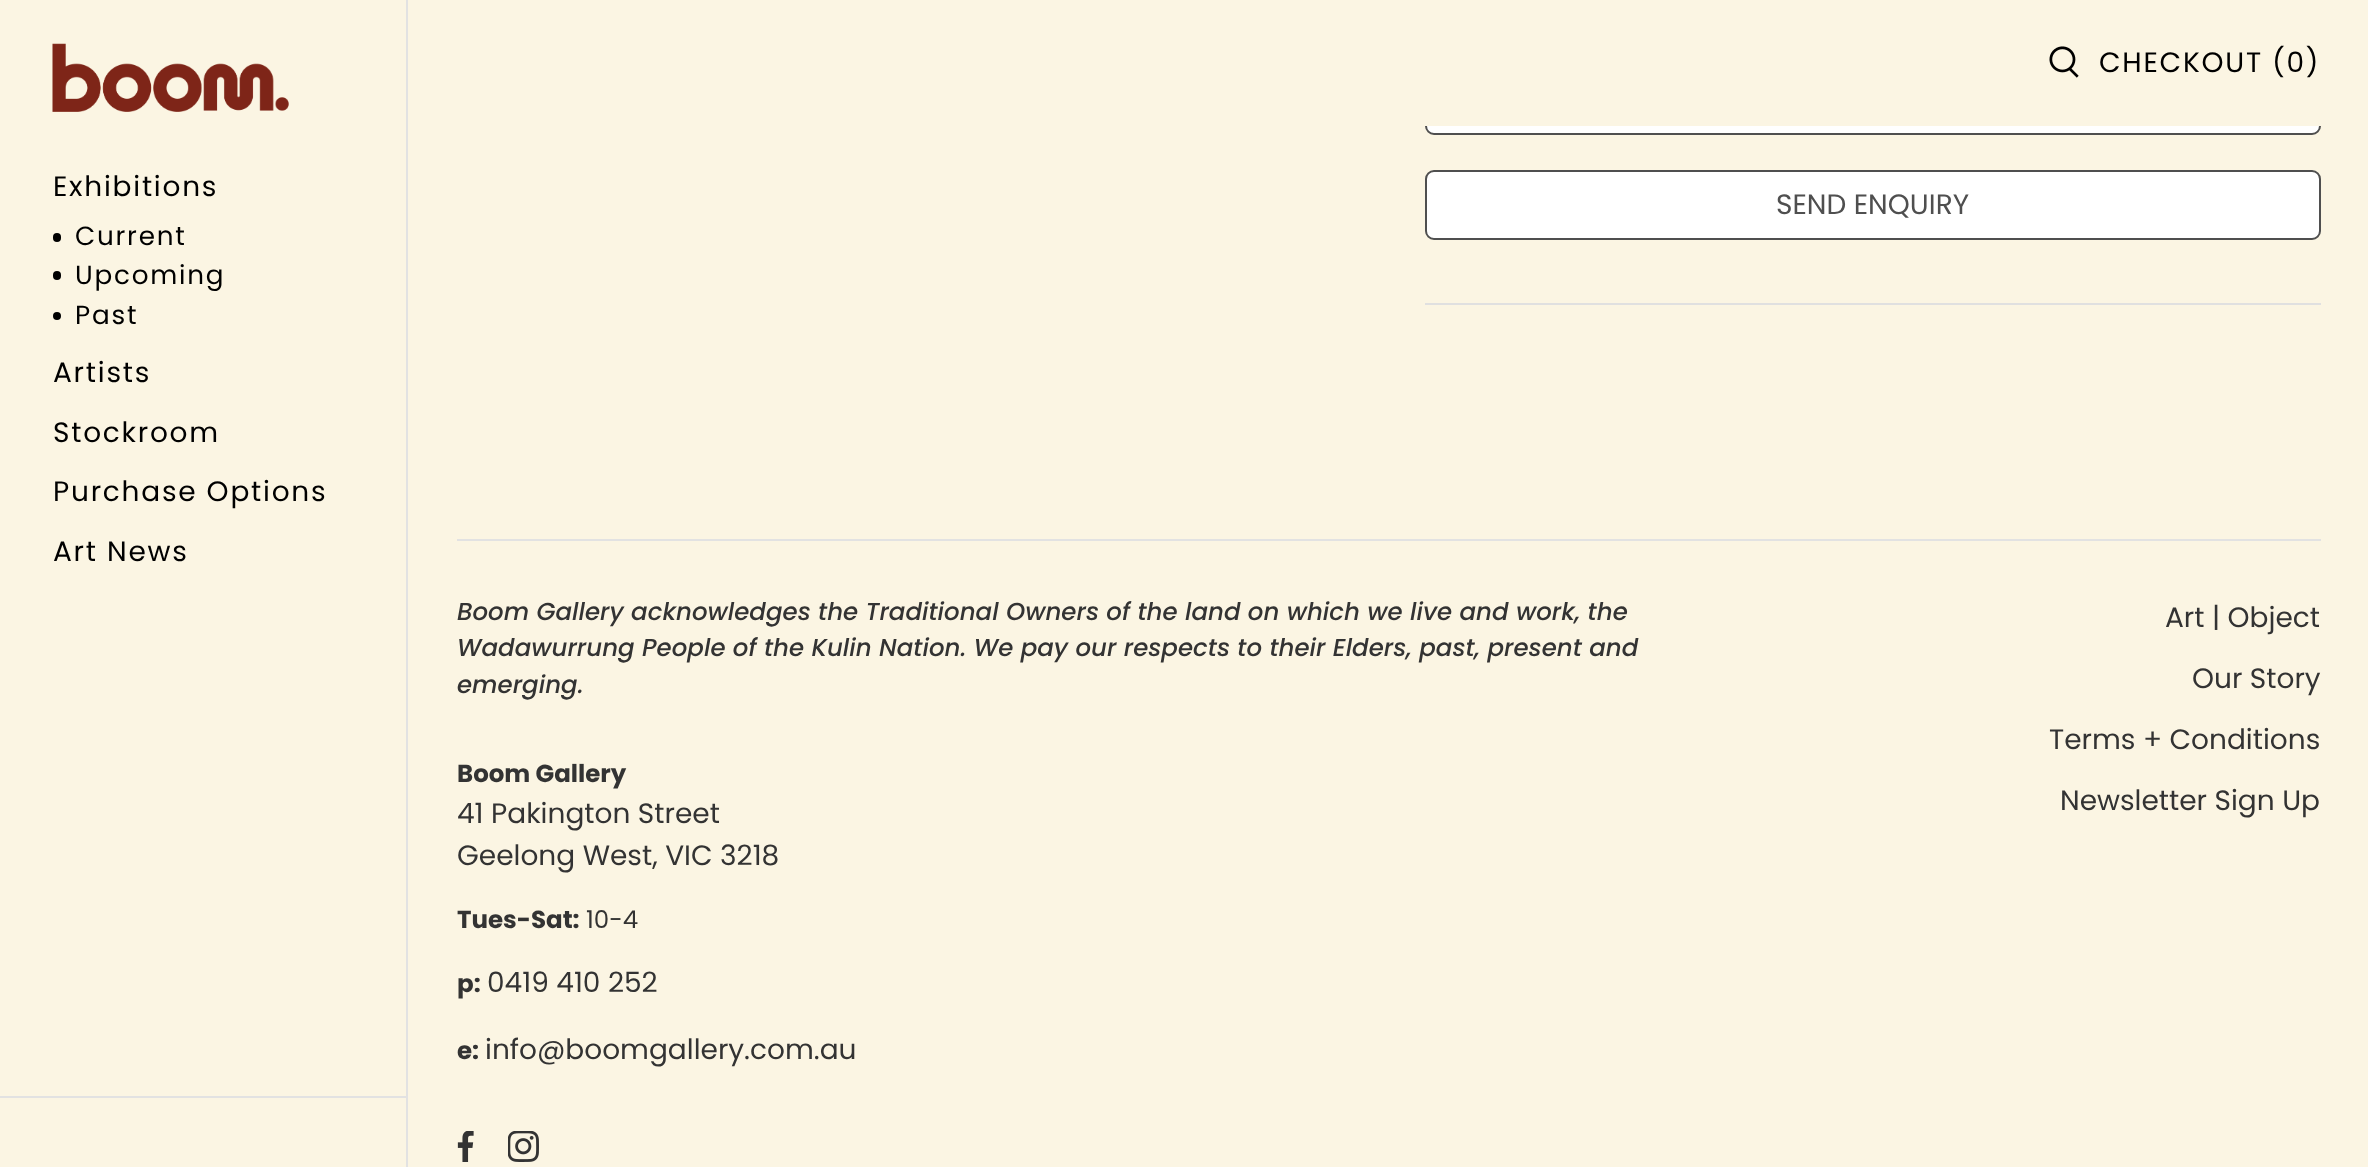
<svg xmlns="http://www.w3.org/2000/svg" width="2368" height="1167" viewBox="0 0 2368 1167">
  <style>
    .t1 { font: 28px Poppins; letter-spacing: 1.75px; fill: #000; }
    .t2 { font: 26.25px Poppins; letter-spacing: 1.75px; fill: #000; }
    .t3 { font: 28px Poppins; fill: #4f4f4f; }
    .t4 { font: italic 500 24.5px Poppins; fill: #333; }
    .t5 { font: bold 24.5px Poppins; fill: #333; }
    .t6 { font: 28px Poppins; fill: #333; }
    .t7 { font: 24.5px Poppins; fill: #333; }
  </style>
  <rect width="100%" height="100%" fill="#fbf5e3"/>
  <rect x="406" y="0" width="2" height="1167" fill="#e2e2e2"/>
  <image x="52" y="43" width="237" height="69" href="images/1.png"/>
  <text x="53" y="196" class="t1">Exhibitions</text>
  <rect x="53" y="233" width="8" height="9" rx="4" fill="#000"/>
  <text x="75" y="245" class="t2">Current</text>
  <rect x="53" y="271" width="8" height="9" rx="4" fill="#000"/>
  <text x="75" y="284" class="t2">Upcoming</text>
  <circle cx="57" cy="316" r="4" fill="#000"/>
  <text x="75" y="324" class="t2">Past</text>
  <text x="53" y="382" class="t1">Artists</text>
  <text x="53" y="442" class="t1">Stockroom</text>
  <text x="53" y="501" class="t1">Purchase Options</text>
  <text x="53" y="561" class="t1">Art News</text>
  <rect x="0" y="1096" width="406" height="2" fill="#e2e2e2"/>
  <rect x="1426" y="66" width="894" height="68" rx="8" fill="#fff" stroke="#4f4f4f" stroke-width="2"/>
  <rect x="1425" y="65" width="896" height="61" fill="#fbf5e3"/>
  <image x="2049" y="46" width="30" height="32" href="images/2.png"/>
  <text x="2099" y="72" class="t1">CHECKOUT (0)</text>
  <rect x="1426" y="171" width="894" height="68" rx="8" fill="#fff" stroke="#4f4f4f" stroke-width="2"/>
  <text x="1776" y="214" class="t3">SEND ENQUIRY</text>
  <rect x="1425" y="303" width="896" height="2" fill="#e0e0e0"/>
  <rect x="457" y="539" width="1864" height="2" fill="#e2e2e2"/>
  <text x="457" y="620" class="t4">Boom Gallery acknowledges the Traditional Owners of the land on which we live and work, the</text>
  <text x="457" y="656" class="t4">Wadawurrung People of the Kulin Nation. We pay our respects to their Elders, past, present and</text>
  <text x="457" y="693" class="t4">emerging.</text>
  <text x="457" y="782" class="t5">Boom Gallery</text>
  <text x="457" y="823" class="t6">41 Pakington Street</text>
  <text x="457" y="865" class="t6">Geelong West, VIC 3218</text>
  <text x="457" y="928" class="t5">Tues-Sat:</text>
  <text x="586" y="928" class="t7">10-4</text>
  <text x="457" y="992" class="t5">p:</text>
  <text x="487" y="992" class="t6">0419 410 252</text>
  <text x="457" y="1059" class="t5">e:</text>
  <text x="485" y="1059" class="t6">info@boomgallery.com.au</text>
  <image x="457" y="1131" width="17" height="31" href="images/3.png"/>
  <image x="508" y="1131" width="31" height="31" href="images/4.png"/>
  <text x="2165" y="627" class="t6">Art | Object</text>
  <text x="2192" y="688" class="t6">Our Story</text>
  <text x="2049" y="749" class="t6">Terms + Conditions</text>
  <text x="2060" y="810" class="t6">Newsletter Sign Up</text>
</svg>
